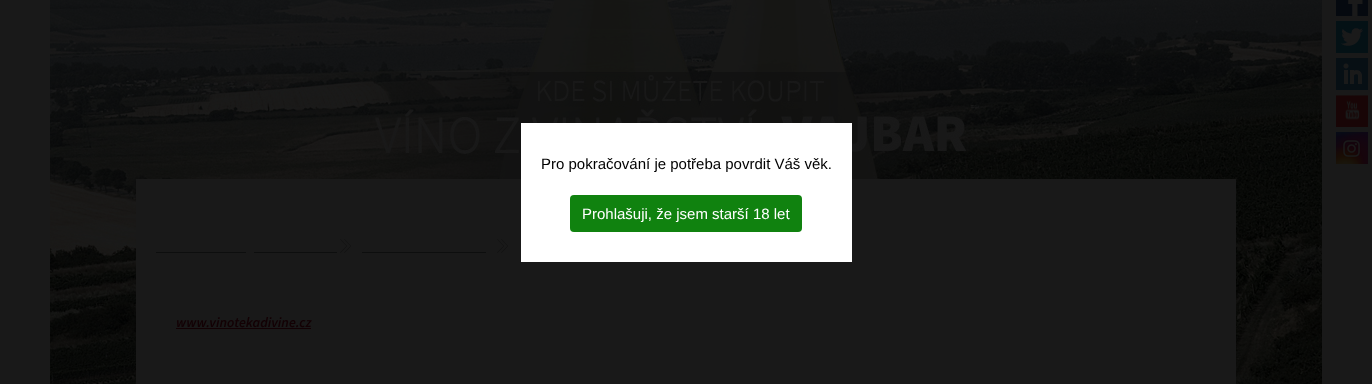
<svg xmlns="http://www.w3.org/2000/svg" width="1372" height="384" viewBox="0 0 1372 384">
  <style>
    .t1 { font: 15px Liberation Sans; fill: #000; }
    .t2 { font: 15px Liberation Sans; fill: #fff; }
    .t3 { font: italic 600 14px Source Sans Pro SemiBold; fill: #130104; }
  </style>
  <rect width="100%" height="100%" fill="#191919"/>
  <image x="1336" y="0" width="32" height="16" href="images/1.png"/>
  <image x="1336" y="21" width="32" height="32" href="images/2.png"/>
  <image x="1336" y="58" width="32" height="32" href="images/3.png"/>
  <image x="1336" y="95" width="32" height="32" href="images/4.png"/>
  <image x="1336" y="132" width="32" height="32" href="images/5.png"/>
  <image x="50" y="0" width="1272" height="384" href="images/6.png"/>
  <rect x="136" y="179" width="1100" height="205" fill="#191919"/>
  <rect x="521" y="123" width="331" height="139" fill="#fff"/>
  <text x="541" y="169" class="t1">Pro pokračování je potřeba povrdit Váš věk.</text>
  <rect x="570" y="195" width="232" height="37" rx="4" fill="#10820f"/>
  <text x="582" y="219" class="t2">Prohlašuji, že jsem starší 18 let</text>
  <rect x="156" y="252" width="90" height="1" fill="#0d0e0e"/>
  <rect x="254" y="252" width="83" height="1" fill="#0d0e0e"/>
  <image x="340" y="239" width="11" height="14" href="images/7.png"/>
  <rect x="362" y="252" width="124" height="1" fill="#0d0e0e"/>
  <image x="497" y="239" width="11" height="14" href="images/7.png"/>
  <text x="176" y="327" class="t3">www.vinotekadivine.cz</text>
  <rect x="176" y="328" width="135" height="1" fill="#130104"/>
</svg>
